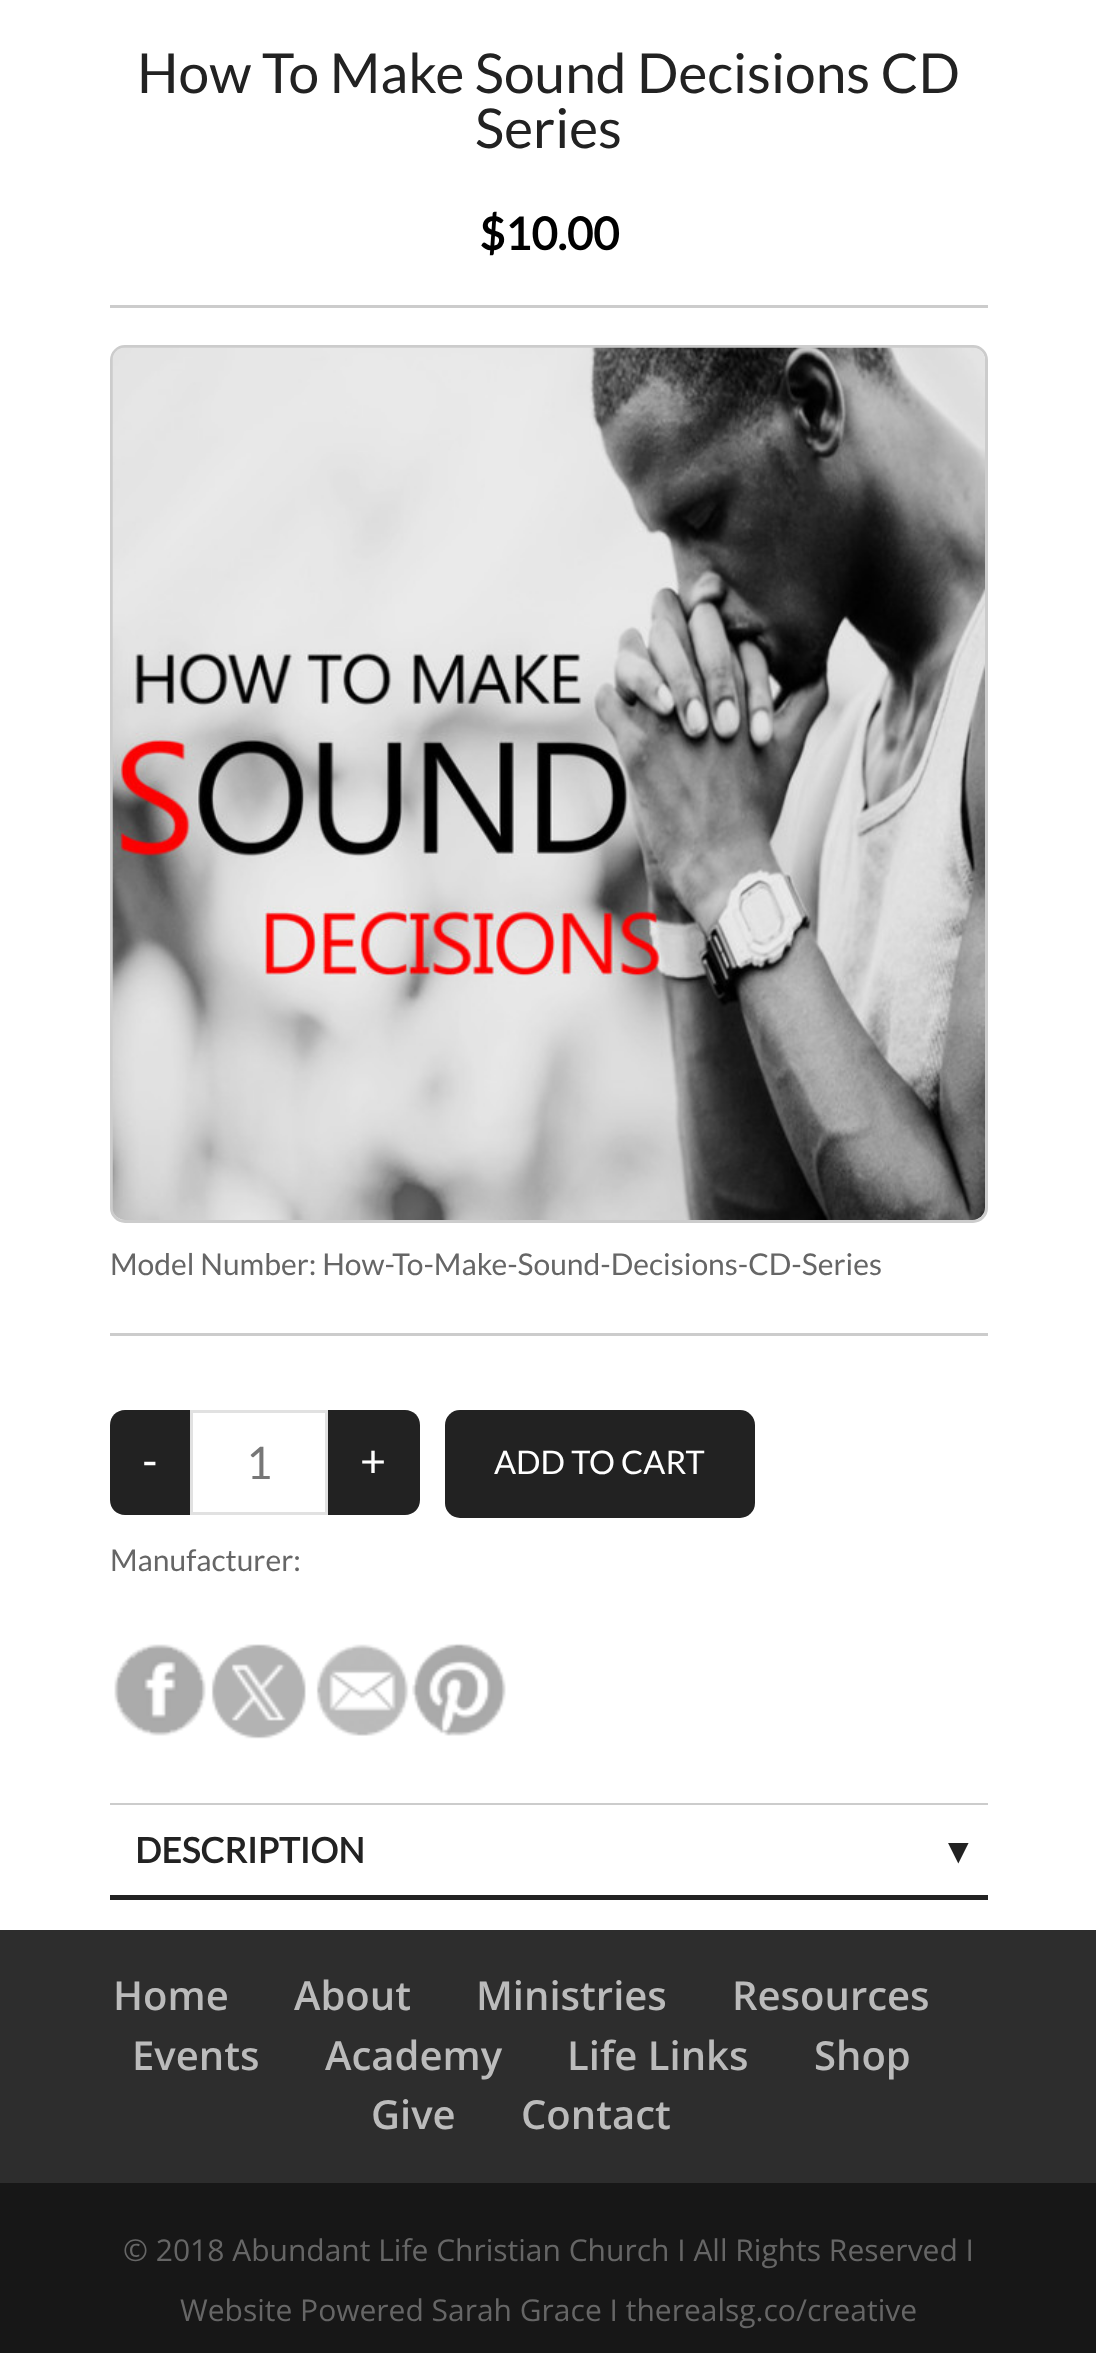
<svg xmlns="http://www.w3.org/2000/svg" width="1096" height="2353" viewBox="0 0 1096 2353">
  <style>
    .t1 { font: 55px Lato; fill: #222; }
    .t2 { font: bold 45px Lato; fill: #000; }
    .t3 { font: 30px Lato; fill: #666; }
    .t4 { font: 45px Lato; fill: #fff; }
    .t5 { font: 45px Lato; fill: #777; }
    .t6 { font: 32.5px Lato; fill: #fff; }
    .t7 { font: bold 35px Lato; fill: #222; }
    .t8 { font: bold 35px Liberation Sans; fill: #222; }
    .t9 { font: 600 40px Open Sans; fill: #bbb; }
    .t10 { font: 30px Open Sans; fill: #666; }
  </style>
  <rect width="100%" height="100%" fill="#fff"/>
  <rect x="110" y="305" width="878" height="3" fill="#ccc"/>
  <text x="137" y="93" class="t1">How To Make Sound Decisions CD</text>
  <text x="475" y="148" class="t1">Series</text>
  <text x="479" y="250" class="t2">$10.00</text>
  <rect x="111.5" y="346.5" width="875" height="875" rx="13.5" fill="none" stroke="#ccc" stroke-width="3"/>
  <image x="112" y="347" width="873" height="873" href="images/1.png"/>
  <text x="110" y="1275" class="t3">Model Number: How-To-Make-Sound-Decisions-CD-Series</text>
  <rect x="110" y="1333" width="878" height="3" fill="#ccc"/>
  <path d="M125 1410H190V1515H125C116.5 1515 110 1508.5 110 1500V1425C110 1416.5 116.5 1410 125 1410Z" fill="#222"/>
  <text x="142" y="1477" class="t4">-</text>
  <rect x="191.5" y="1411.5" width="135" height="102" fill="none" stroke="#e1e1e1" stroke-width="3"/>
  <text x="246" y="1479" class="t5">1</text>
  <path d="M328 1410H405C413.5 1410 420 1416.5 420 1425V1500C420 1508.5 413.5 1515 405 1515H328Z" fill="#222"/>
  <text x="360" y="1477" class="t4">+</text>
  <rect x="445" y="1410" width="310" height="108" rx="15" fill="#222"/>
  <text x="494" y="1474" class="t6">ADD TO CART</text>
  <text x="110" y="1571" class="t3">Manufacturer:</text>
  <image x="114" y="1644" width="92" height="92" href="images/2.png"/>
  <image x="211" y="1644" width="95" height="95" href="images/3.png"/>
  <image x="316" y="1644" width="93" height="92" href="images/4.png"/>
  <image x="412" y="1643" width="94" height="93" href="images/5.png"/>
  <rect x="110" y="1803" width="878" height="2" fill="#ccc"/>
  <rect x="110" y="1895" width="878" height="5" fill="#222"/>
  <text x="135" y="1863" class="t7">DESCRIPTION</text>
  <text x="941" y="1863" class="t8">▼</text>
  <rect x="0" y="1930" width="1096" height="253" fill="#2d2d2d"/>
  <text x="113" y="2010" class="t9">Home</text>
  <text x="294" y="2010" class="t9">About</text>
  <text x="476" y="2010" class="t9">Ministries</text>
  <text x="732" y="2010" class="t9">Resources</text>
  <text x="132" y="2070" class="t9">Events</text>
  <text x="325" y="2070" class="t9">Academy</text>
  <text x="567" y="2070" class="t9">Life Links</text>
  <text x="814" y="2070" class="t9">Shop</text>
  <text x="371" y="2129" class="t9">Give</text>
  <text x="521" y="2129" class="t9">Contact</text>
  <rect x="0" y="2183" width="1096" height="170" fill="#171717"/>
  <text x="123" y="2261" class="t10">© 2018 Abundant Life Christian Church I All Rights Reserved I</text>
  <text x="180" y="2321" class="t10">Website Powered Sarah Grace I therealsg.co/creative</text>
</svg>
